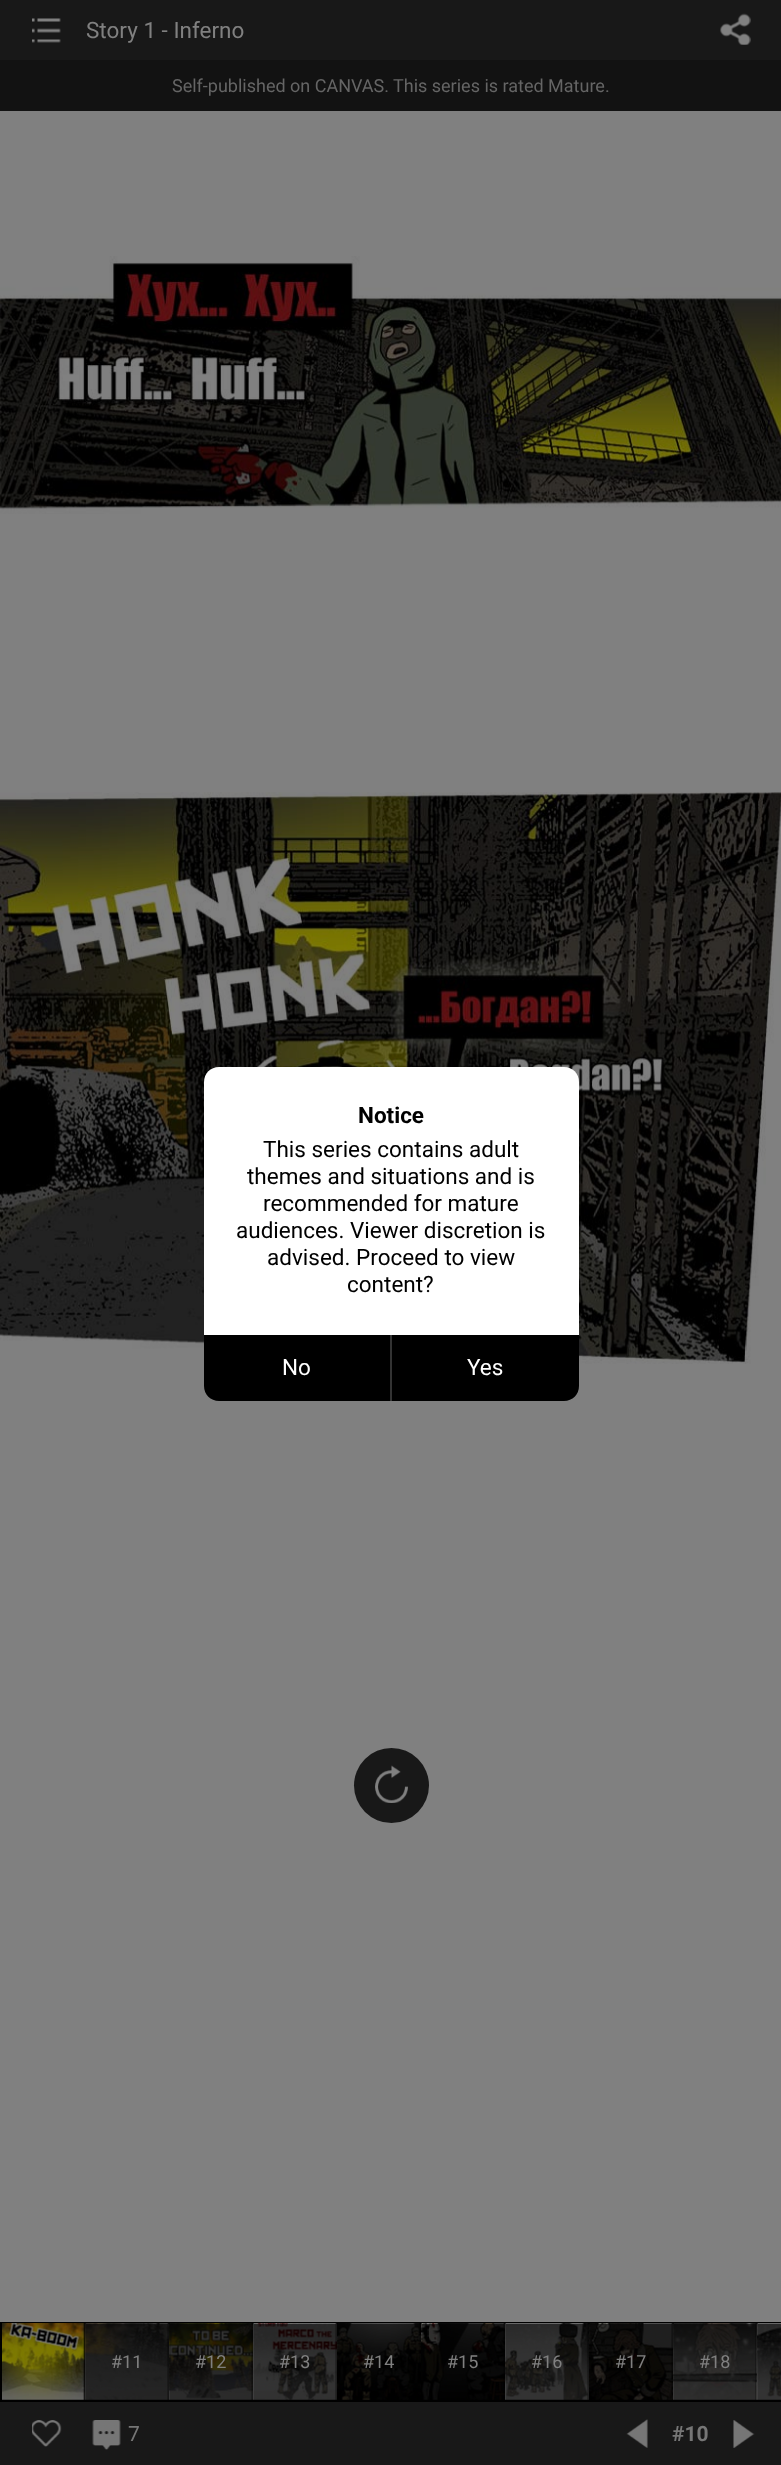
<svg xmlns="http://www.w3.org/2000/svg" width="781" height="2465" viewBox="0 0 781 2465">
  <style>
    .t1 { font: 22.5px Roboto; fill: #808080; }
    .t2 { font: 18px Roboto; fill: #656565; }
    .t3 { font: 18px Roboto; fill: #808080; }
    .t4 { font: 21px Roboto; fill: #767676; }
    .t5 { font: bold 21px Roboto; fill: #767676; }
    .t6 { font: bold 22.5px Roboto; fill: #000; }
    .t7 { font: 22.5px Roboto; fill: #000; }
    .t8 { font: 22.5px Roboto; fill: #fff; }
  </style>
  <rect width="100%" height="100%" fill="#808080"/>
  <rect x="0" y="0" width="781" height="60" fill="#181818"/>
  <image x="32" y="18" width="29" height="25" href="images/1.png"/>
  <text x="86" y="38" class="t1">Story 1 - Inferno</text>
  <image x="720" y="13" width="31" height="32" href="images/2.png"/>
  <rect x="0" y="60" width="781" height="51" fill="#121212"/>
  <text x="172" y="92" class="t2">Self-published on CANVAS.</text>
  <text x="393" y="92" class="t2">This series is rated Mature.</text>
  <image x="0" y="256" width="781" height="258" href="images/3.png"/>
  <image x="0" y="792" width="781" height="572" href="images/4.png"/>
  <circle cx="391.5" cy="1785.5" r="37.5" fill="#181818"/>
  <image x="375" y="1765" width="33" height="38" href="images/5.png"/>
  <rect x="0" y="2402" width="781" height="63" fill="#181818"/>
  <rect x="0" y="2322" width="781" height="80" fill="#000"/>
  <image x="2" y="2323" width="83" height="77" href="images/6.png"/>
  <image x="85" y="2323" width="84" height="77" href="images/7.png"/>
  <text x="111" y="2368" class="t3">#11</text>
  <image x="169" y="2323" width="84" height="77" href="images/8.png"/>
  <text x="195" y="2368" class="t3">#12</text>
  <image x="253" y="2323" width="84" height="77" href="images/9.png"/>
  <text x="279" y="2368" class="t3">#13</text>
  <image x="337" y="2323" width="84" height="77" href="images/10.png"/>
  <text x="363" y="2368" class="t3">#14</text>
  <image x="421" y="2323" width="84" height="77" href="images/11.png"/>
  <text x="447" y="2368" class="t3">#15</text>
  <image x="505" y="2323" width="84" height="77" href="images/12.png"/>
  <text x="531" y="2368" class="t3">#16</text>
  <image x="589" y="2323" width="84" height="77" href="images/13.png"/>
  <text x="615" y="2368" class="t3">#17</text>
  <image x="673" y="2323" width="84" height="77" href="images/14.png"/>
  <text x="699" y="2368" class="t3">#18</text>
  <image x="757" y="2323" width="24" height="77" href="images/15.png"/>
  <image x="32" y="2420" width="30" height="27" href="images/16.png"/>
  <image x="92" y="2420" width="29" height="30" href="images/17.png"/>
  <text x="128" y="2441" class="t4">7</text>
  <image x="626" y="2419" width="22" height="29" href="images/18.png"/>
  <text x="672" y="2441" class="t5">#10</text>
  <image x="733" y="2420" width="22" height="28" href="images/19.png"/>
  <path d="M219 1067H564C572.5 1067 579 1073.5 579 1082V1335H204V1082C204 1073.5 210.5 1067 219 1067Z" fill="#fff"/>
  <text x="358" y="1123" class="t6">Notice</text>
  <text x="263" y="1157" class="t7">This series contains adult</text>
  <text x="247" y="1184" class="t7">themes and situations and is</text>
  <text x="263" y="1211" class="t7">recommended for mature</text>
  <text x="236" y="1238" class="t7">audiences. Viewer discretion is</text>
  <text x="267" y="1265" class="t7">advised. Proceed to view</text>
  <text x="347" y="1292" class="t7">content?</text>
  <path d="M204 1335H579V1386C579 1394.5 572.5 1401 564 1401H219C210.5 1401 204 1394.5 204 1386Z" fill="#000"/>
  <text x="282" y="1375" class="t8">No</text>
  <rect x="390" y="1335" width="2" height="66" fill="#333"/>
  <text x="467" y="1375" class="t8">Yes</text>
</svg>
